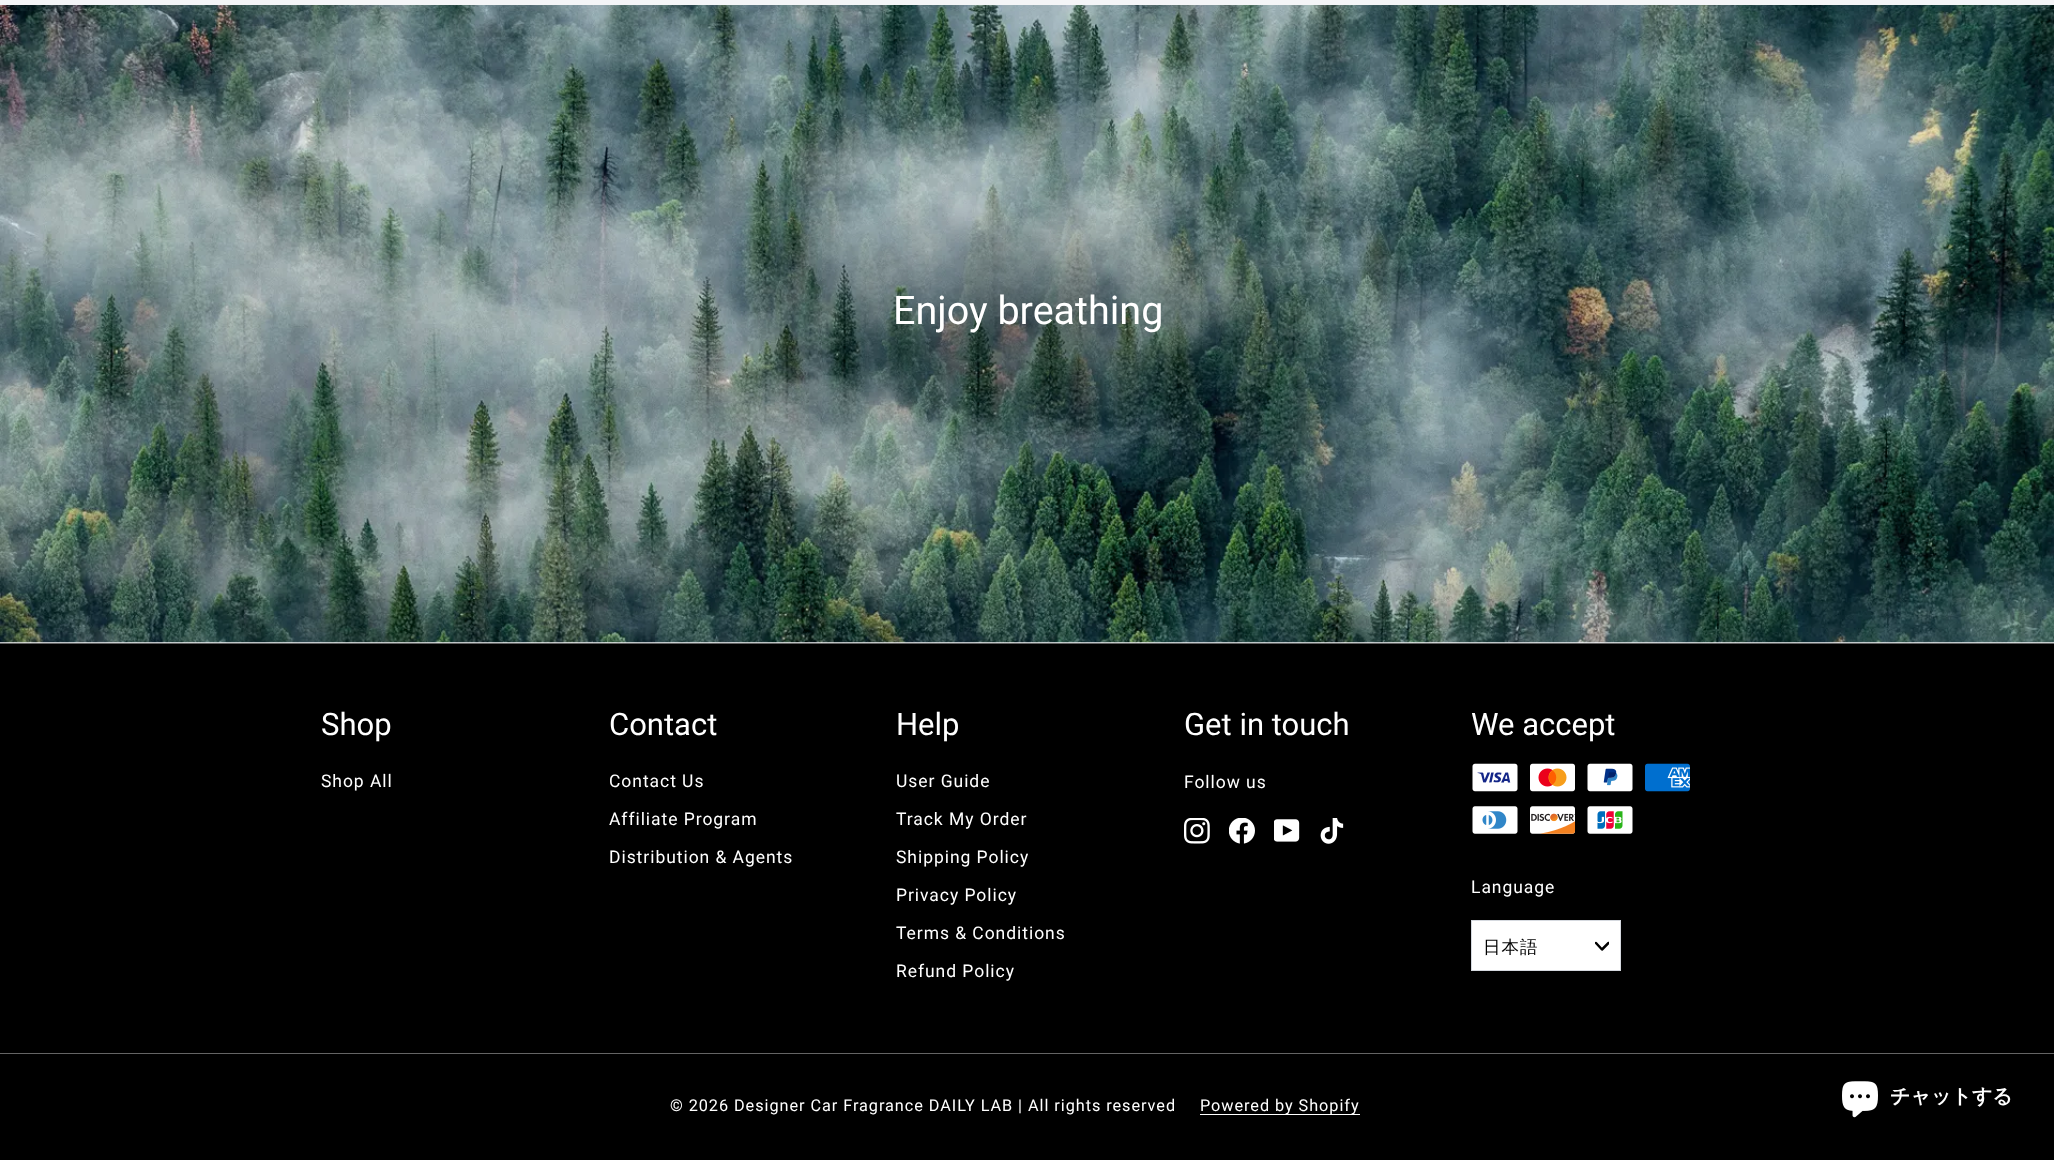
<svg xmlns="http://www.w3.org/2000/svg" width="2054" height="1160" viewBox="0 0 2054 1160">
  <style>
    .t1 { font: 39.5px Roboto; fill: #fff; }
    .t2 { font: 31px Roboto; fill: #fff; }
    .t3 { font: 17.5px Roboto; letter-spacing: 0.95px; fill: #fff; }
    .t4 { font: 500 17.5px WenQuanYi Zen Hei; letter-spacing: 1px; fill: #000; }
    .t5 { font: 16.25px Roboto; letter-spacing: 0.95px; fill: #fff; }
    .t6 { font: bold 20px WenQuanYi Zen Hei; fill: #fff; }
  </style>
  <defs>
    <clipPath id="clip1"><rect x="1595" y="940" width="14" height="14"/></clipPath>
  </defs>
  <rect width="100%" height="100%" fill="#f4f5f7"/>
  <image x="0" y="5" width="2054" height="638" href="images/1.png"/>
  <text x="893" y="324" class="t1">Enjoy breathing</text>
  <rect x="0" y="644" width="2054" height="516" fill="#000"/>
  <rect x="0" y="643" width="2054" height="1" fill="#646464"/>
  <text x="321" y="735" class="t2">Shop</text>
  <text x="321" y="787" class="t3">Shop All</text>
  <text x="609" y="735" class="t2">Contact</text>
  <text x="609" y="787" class="t3">Contact Us</text>
  <text x="609" y="825" class="t3">Affiliate Program</text>
  <text x="609" y="863" class="t3">Distribution &amp; Agents</text>
  <text x="896" y="735" class="t2">Help</text>
  <text x="896" y="787" class="t3">User Guide</text>
  <text x="896" y="825" class="t3">Track My Order</text>
  <text x="896" y="863" class="t3">Shipping Policy</text>
  <text x="896" y="901" class="t3">Privacy Policy</text>
  <text x="896" y="939" class="t3">Terms &amp; Conditions</text>
  <text x="896" y="977" class="t3">Refund Policy</text>
  <text x="1184" y="735" class="t2">Get in touch</text>
  <text x="1184" y="788" class="t3">Follow us</text>
  <image x="1184" y="818" width="26" height="26" href="images/2.png"/>
  <image x="1229" y="818" width="26" height="26" href="images/3.png"/>
  <image x="1274" y="819" width="26" height="23" href="images/4.png"/>
  <image x="1320" y="818" width="24" height="26" href="images/5.png"/>
  <text x="1471" y="735" class="t2">We accept</text>
  <image x="1472" y="763" width="46" height="29" href="images/6.png"/>
  <image x="1530" y="763" width="45" height="29" href="images/7.png"/>
  <image x="1587" y="763" width="46" height="29" href="images/8.png"/>
  <image x="1645" y="763" width="45" height="29" href="images/9.png"/>
  <image x="1472" y="806" width="46" height="28" href="images/10.png"/>
  <image x="1530" y="806" width="46" height="28" href="images/11.png"/>
  <image x="1587" y="806" width="46" height="28" href="images/12.png"/>
  <text x="1471" y="893" class="t3">Language</text>
  <rect x="1471.5" y="920.5" width="149" height="50" fill="#fff" stroke="#d5d9df"/>
  <text x="1483" y="953" class="t4">日本語</text>
  <g clip-path="url(#clip1)">
    <path d="M1596 943L1602 949.5L1608.5 943" fill="none" stroke="#000" stroke-width="2.5" stroke-linecap="round" stroke-linejoin="round"/>
  </g>
  <rect x="0" y="1053" width="2054" height="1" fill="#646464"/>
  <text x="670" y="1111" class="t5">© 2026 Designer Car Fragrance DAILY LAB | All rights reserved</text>
  <rect x="1200" y="1114" width="160" height="1" fill="#fff"/>
  <text x="1200" y="1111" class="t5">Powered by Shopify</text>
  <image x="1842" y="1081" width="36" height="37" href="images/13.png"/>
  <text x="1890" y="1103" class="t6">チャットする</text>
</svg>
